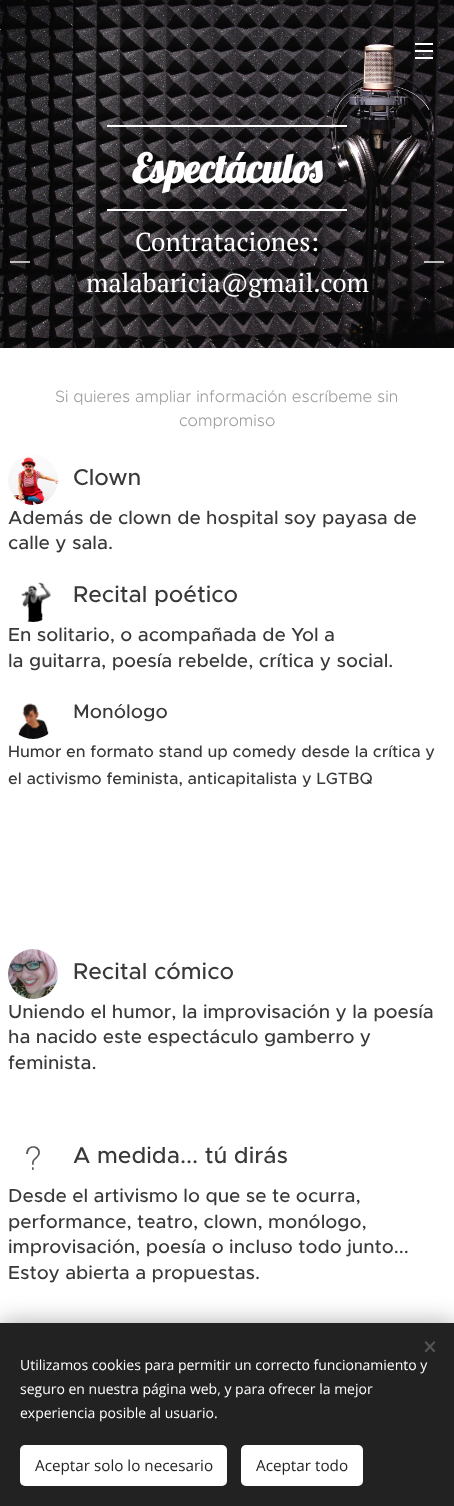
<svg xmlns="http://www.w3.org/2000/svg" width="454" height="1506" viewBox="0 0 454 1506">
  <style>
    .t1 { font: bold 40px Lobster; fill: #fff; }
    .t2 { font: 26px PT Serif; fill: #fff; }
    .t3 { font: 300 16.4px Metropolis; fill: #9d9d9d; }
    .t4 { font: 500 23px Metropolis; fill: #393939; }
    .t5 { font: 500 19px Metropolis; fill: #393939; }
    .t6 { font: 500 19.5px Metropolis; fill: #393939; }
    .t7 { font: 500 16.4px Metropolis; fill: #393939; }
    .t8 { font: 14px Open Sans; fill: #fff; }
    .t9 { font: 15.25px Open Sans; fill: #222; }
  </style>
  <rect width="100%" height="100%" fill="#fff"/>
  <image x="0" y="0" width="454" height="348" href="images/1.png"/>
  <rect x="415" y="50" width="18" height="2" fill="#fff"/>
  <rect x="415" y="43" width="18" height="2" fill="#fff"/>
  <rect x="415" y="57" width="18" height="2" fill="#fff"/>
  <rect x="107" y="125" width="240" height="2" fill="#fff"/>
  <rect x="107" y="209" width="240" height="2" fill="#fff"/>
  <text x="132" y="183" class="t1">Espectáculos</text>
  <text x="135" y="251" class="t2">Contrataciones:</text>
  <rect x="10" y="261" width="20" height="2" fill="#ffffffb3"/>
  <rect x="424" y="261" width="20" height="2" fill="#ffffffb3"/>
  <text x="86" y="292" class="t2">malabaricia@gmail.com</text>
  <text x="55" y="402" class="t3">Si quieres ampliar información escríbeme sin</text>
  <text x="179" y="426" class="t3">compromiso</text>
  <image x="8" y="455" width="50" height="50" href="images/2.png"/>
  <text x="73" y="485" class="t4">Clown</text>
  <text x="8" y="524" class="t5">Además de clown de hospital soy payasa de</text>
  <text x="8" y="549" class="t5">calle y sala.</text>
  <image x="21" y="582" width="31" height="40" href="images/3.png"/>
  <text x="73" y="602" class="t4">Recital poético</text>
  <text x="8" y="641" class="t5">En solitario, o acompañada de Yol a</text>
  <text x="8" y="667" class="t5">la guitarra, poesía rebelde, crítica y social.</text>
  <text x="73" y="718" class="t6">Monólogo</text>
  <text x="8" y="757" class="t7">Humor en formato stand up comedy desde la crítica y</text>
  <text x="8" y="784" class="t7">el activismo feminista, anticapitalista y LGTBQ</text>
  <image x="18" y="703" width="31" height="36" href="images/4.png"/>
  <image x="8" y="949" width="50" height="50" href="images/5.png"/>
  <text x="73" y="979" class="t4">Recital cómico</text>
  <text x="8" y="1018" class="t5">Uniendo el humor, la improvisación y la poesía</text>
  <text x="8" y="1043" class="t5">ha nacido este espectáculo gamberro y</text>
  <text x="8" y="1069" class="t5">feminista.</text>
  <text x="73" y="1163" class="t4">A medida... tú dirás</text>
  <text x="8" y="1202" class="t5">Desde el artivismo lo que se te ocurra,</text>
  <text x="8" y="1228" class="t5">performance, teatro, clown, monólogo,</text>
  <text x="8" y="1253" class="t5">improvisación, poesía o incluso todo junto...</text>
  <text x="8" y="1279" class="t5">Estoy abierta a propuestas.</text>
  <image x="26" y="1146" width="14" height="24" href="images/6.png"/>
  <rect x="0" y="1323" width="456" height="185" fill="#00000054" filter="blur(12.5px)"/>
  <rect x="0" y="1323" width="454" height="183" fill="#222"/>
  <path d="M424.5 1351L434 1341L435.5 1342.5L426 1352.5Z" fill="#555"/>
  <path d="M426 1341L435.5 1351L434 1352.5L424.5 1342.5Z" fill="#555"/>
  <text x="20" y="1370" class="t8">Utilizamos cookies para permitir un correcto funcionamiento y</text>
  <text x="20" y="1394" class="t8">seguro en nuestra página web, y para ofrecer la mejor</text>
  <text x="20" y="1418" class="t8">experiencia posible al usuario.</text>
  <rect x="20" y="1445" width="207" height="41" rx="5" fill="#fff"/>
  <text x="35" y="1471" class="t9">Aceptar solo lo necesario</text>
  <rect x="241" y="1445" width="122" height="41" rx="5" fill="#fff"/>
  <text x="256" y="1471" class="t9">Aceptar todo</text>
</svg>
